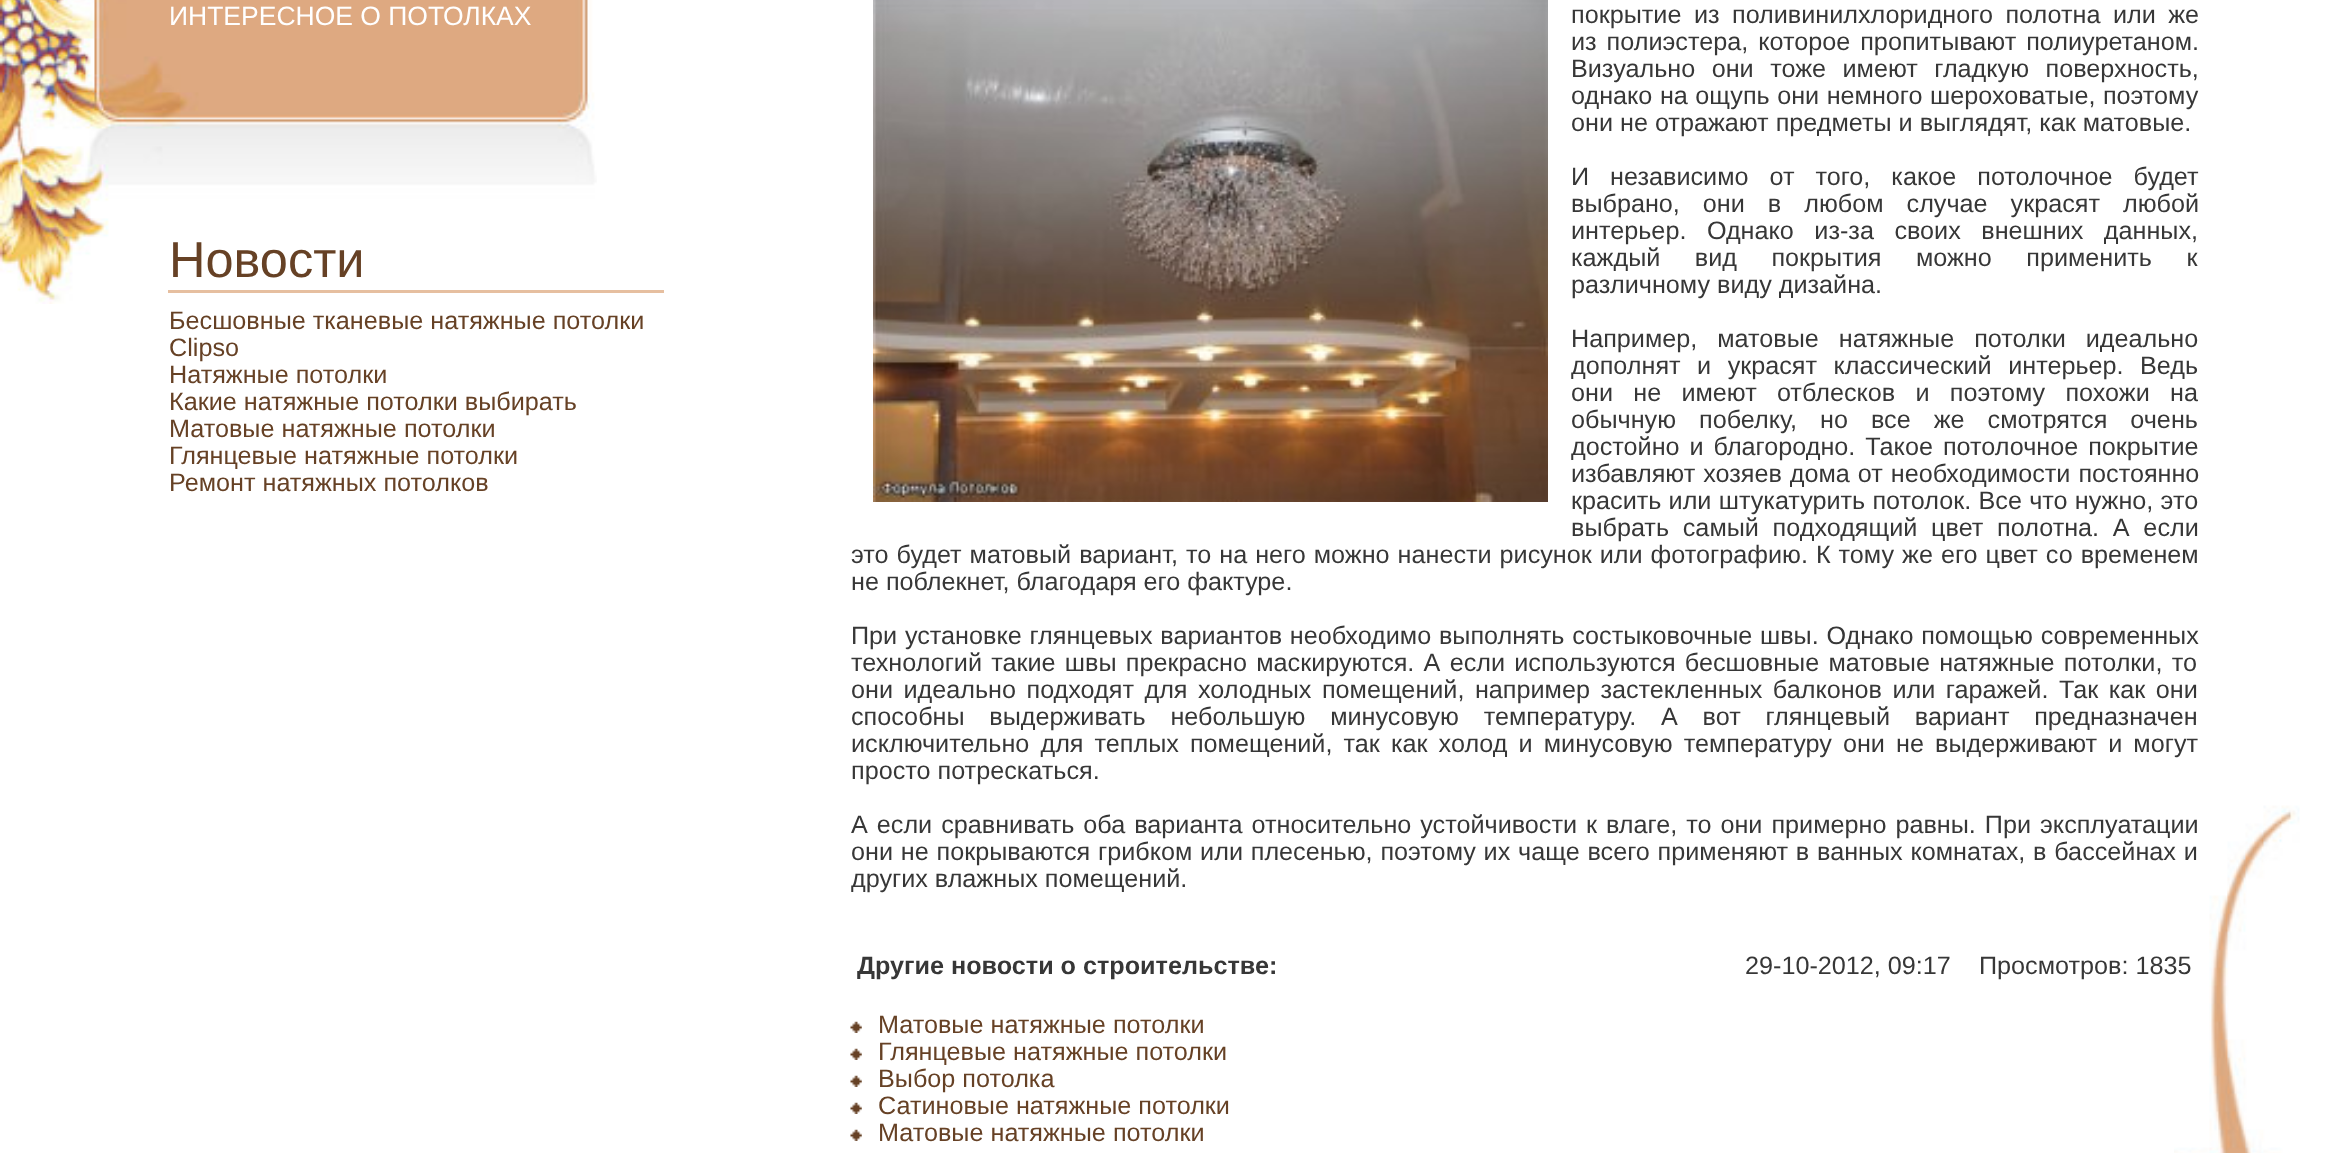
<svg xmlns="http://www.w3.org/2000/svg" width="2339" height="1153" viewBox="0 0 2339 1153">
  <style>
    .t1 { font: 26.5px Liberation Sans; fill: #fff; }
    .t2 { font: 50.5px Liberation Sans; fill: #664125; }
    .t3 { font: 25.2px Liberation Sans; fill: #664125; }
    .t4 { font: 25.2px Liberation Sans; fill: #373737; }
    .t5 { font: bold 25.2px Liberation Sans; fill: #373737; }
  </style>
  <rect width="100%" height="100%" fill="#fff"/>
  <image x="2174" y="805" width="126" height="348" href="images/1.png"/>
  <image x="0" y="0" width="597" height="304" href="images/2.png"/>
  <text x="169" y="25" class="t1">ИНТЕРЕСНОЕ О ПОТОЛКАХ</text>
  <text x="169" y="277" class="t2">Новости</text>
  <rect x="168" y="290" width="496" height="3" fill="#e6bfa0"/>
  <text x="169" y="329" class="t3">Бесшовные тканевые натяжные потолки</text>
  <text x="169" y="356" class="t3">Clipso</text>
  <text x="169" y="383" class="t3">Натяжные потолки</text>
  <text x="169" y="410" class="t3">Какие натяжные потолки выбирать</text>
  <text x="169" y="437" class="t3">Матовые натяжные потолки</text>
  <text x="169" y="464" class="t3">Глянцевые натяжные потолки</text>
  <text x="169" y="491" class="t3">Ремонт натяжных потолков</text>
  <image x="873" y="0" width="675" height="502" href="images/3.png"/>
  <text x="1571" y="23" word-spacing="5.5" class="t4">покрытие из поливинилхлоридного полотна или же</text>
  <text x="1571" y="50" word-spacing="3" class="t4">из полиэстера, которое пропитывают полиуретаном.</text>
  <text x="1571" y="77" word-spacing="9.5" class="t4">Визуально они тоже имеют гладкую поверхность,</text>
  <text x="1571" y="104" word-spacing="0.5" class="t4">однако на ощупь они немного шероховатые, поэтому</text>
  <text x="1571" y="131" class="t4">они не отражают предметы и выглядят, как матовые.</text>
  <text x="1571" y="185" word-spacing="14" class="t4">И независимо от того, какое потолочное будет</text>
  <text x="1571" y="212" word-spacing="16" class="t4">выбрано, они в любом случае украсят любой</text>
  <text x="1571" y="239" word-spacing="13.5" class="t4">интерьер. Однако из-за своих внешних данных,</text>
  <text x="1571" y="266" word-spacing="27.5" class="t4">каждый вид покрытия можно применить к</text>
  <text x="1571" y="293" class="t4">различному виду дизайна.</text>
  <text x="1571" y="347" word-spacing="13" class="t4">Например, матовые натяжные потолки идеально</text>
  <text x="1571" y="374" word-spacing="9.5" class="t4">дополнят и украсят классический интерьер. Ведь</text>
  <text x="1571" y="401" word-spacing="13.25" class="t4">они не имеют отблесков и поэтому похожи на</text>
  <text x="1571" y="428" word-spacing="16" class="t4">обычную побелку, но все же смотрятся очень</text>
  <text x="1571" y="455" word-spacing="3" class="t4">достойно и благородно. Такое потолочное покрытие</text>
  <text x="1571" y="482" word-spacing="1" class="t4">избавляют хозяев дома от необходимости постоянно</text>
  <text x="1571" y="509" word-spacing="0.25" class="t4">красить или штукатурить потолок. Все что нужно, это</text>
  <text x="1571" y="536" word-spacing="6.75" class="t4">выбрать самый подходящий цвет полотна. А если</text>
  <text x="851" y="563" word-spacing="1" class="t4">это будет матовый вариант, то на него можно нанести рисунок или фотографию. К тому же его цвет со временем</text>
  <text x="851" y="590" class="t4">не поблекнет, благодаря его фактуре.</text>
  <text x="851" y="644" word-spacing="0.75" class="t4">При установке глянцевых вариантов необходимо выполнять состыковочные швы. Однако помощью современных</text>
  <text x="851" y="671" word-spacing="2.25" class="t4">технологий такие швы прекрасно маскируются. А если используются бесшовные матовые натяжные потолки, то</text>
  <text x="851" y="698" word-spacing="3.5" class="t4">они идеально подходят для холодных помещений, например застекленных балконов или гаражей. Так как они</text>
  <text x="851" y="725" word-spacing="17.75" class="t4">способны выдерживать небольшую минусовую температуру. А вот глянцевый вариант предназначен</text>
  <text x="851" y="752" word-spacing="4.1" class="t4">исключительно для теплых помещений, так как холод и минусовую температуру они не выдерживают и могут</text>
  <text x="851" y="779" class="t4">просто потрескаться.</text>
  <text x="851" y="833" word-spacing="2" class="t4">А если сравнивать оба варианта относительно устойчивости к влаге, то они примерно равны. При эксплуатации</text>
  <text x="851" y="860" word-spacing="0.8" class="t4">они не покрываются грибком или плесенью, поэтому их чаще всего применяют в ванных комнатах, в бассейнах и</text>
  <text x="851" y="887" class="t4">других влажных помещений.</text>
  <text x="857" y="974" class="t5">Другие новости о строительстве:</text>
  <text x="1745" y="974" class="t4">29-10-2012, 09:17</text>
  <text x="1979" y="974" class="t4">Просмотров: 1835</text>
  <image x="850" y="1021" width="12" height="12" href="images/4.png"/>
  <text x="878" y="1033" class="t3">Матовые натяжные потолки</text>
  <image x="850" y="1048" width="12" height="12" href="images/4.png"/>
  <text x="878" y="1060" class="t3">Глянцевые натяжные потолки</text>
  <image x="850" y="1075" width="12" height="12" href="images/4.png"/>
  <text x="878" y="1087" class="t3">Выбор потолка</text>
  <image x="850" y="1102" width="12" height="12" href="images/4.png"/>
  <text x="878" y="1114" class="t3">Сатиновые натяжные потолки</text>
  <image x="850" y="1129" width="12" height="12" href="images/4.png"/>
  <text x="878" y="1141" class="t3">Матовые натяжные потолки</text>
</svg>
